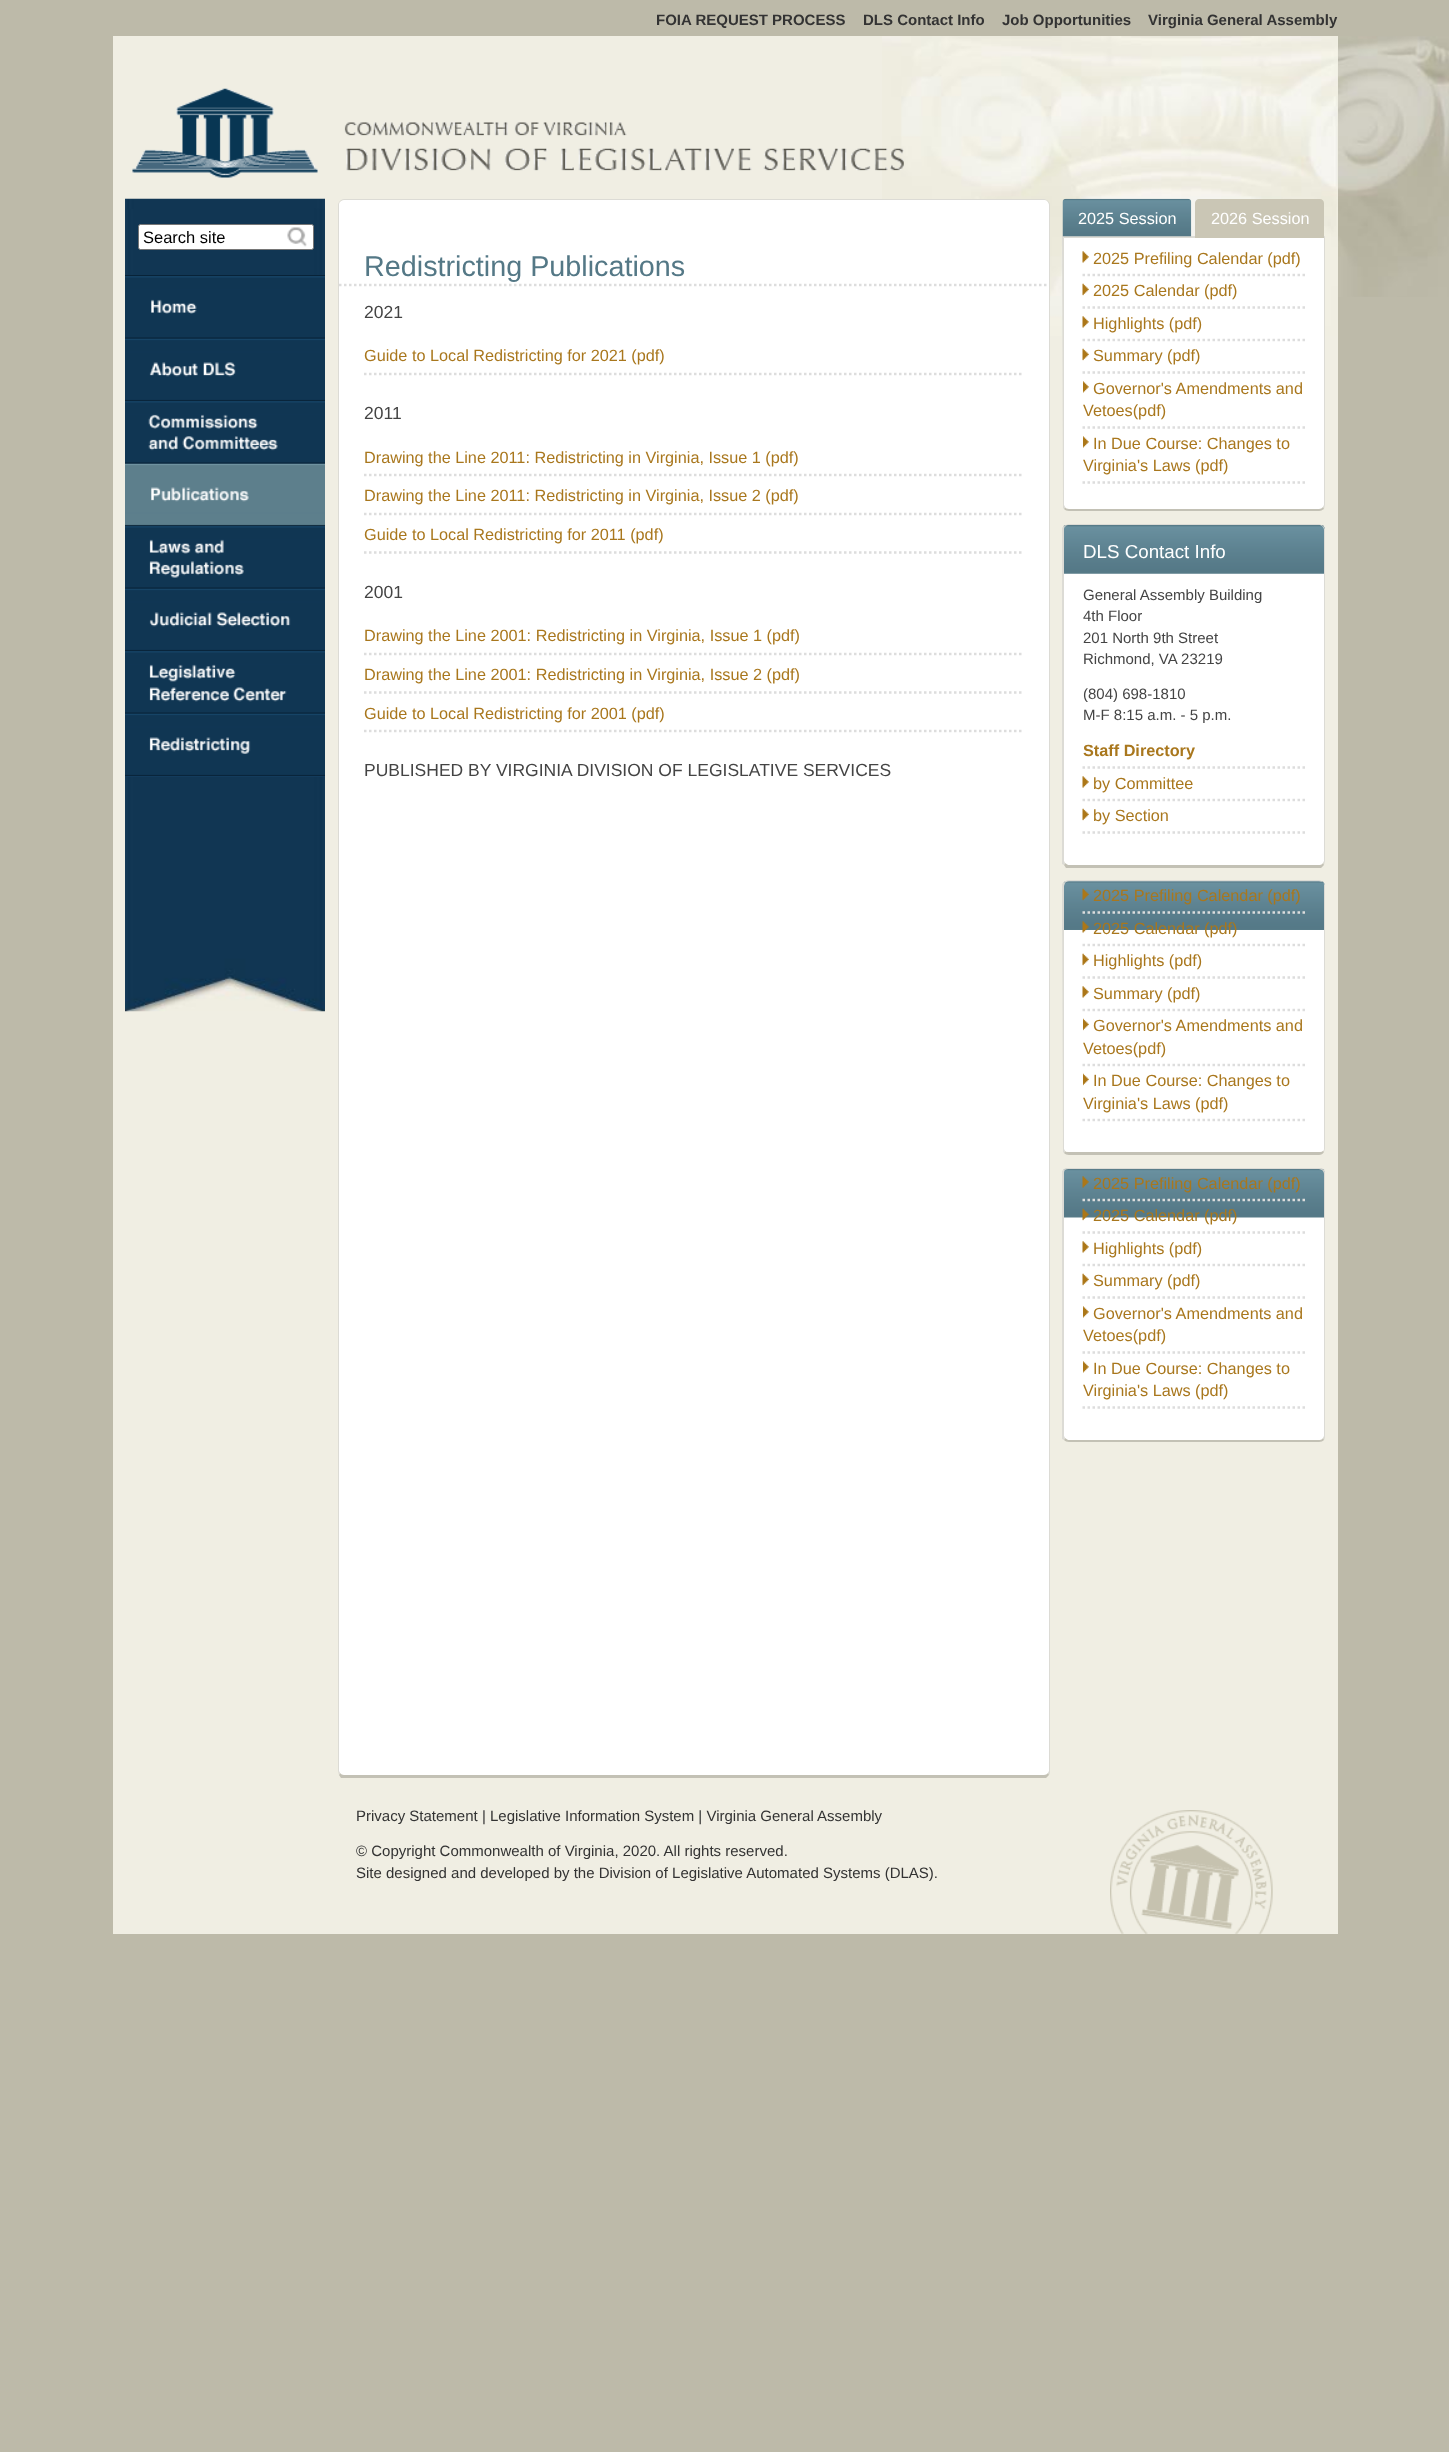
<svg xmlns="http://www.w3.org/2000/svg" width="1449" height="2452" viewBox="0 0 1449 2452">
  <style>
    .t1 { font: bold 15px Liberation Sans; fill: #333; }
    .t2 { font: 16.25px Liberation Sans; fill: #fff; }
    .t3 { font: 16.25px Liberation Sans; fill: #a9771d; }
    .t4 { font: 18.75px Liberation Sans; fill: #fff; }
    .t5 { font: 15px Liberation Sans; fill: #444; }
    .t6 { font: bold 16.25px Liberation Sans; fill: #a9771d; }
    .t7 { font: 15px Liberation Sans; fill: #333; }
    .t8 { font: 16.5px Liberation Sans; fill: #000; }
    .t9 { font: 28.75px Liberation Sans; fill: #547886; }
    .t10 { font: 17.5px Liberation Sans; fill: #444; }
  </style>
  <rect width="100%" height="100%" fill="#bdbaa9"/>
  <text x="656" y="25" class="t1">FOIA REQUEST PROCESS</text>
  <text x="863" y="25" class="t1">DLS Contact Info</text>
  <text x="1002" y="25" class="t1">Job Opportunities</text>
  <text x="1148" y="25" class="t1">Virginia General Assembly</text>
  <image x="1338" y="36" width="111" height="261" href="images/1.png"/>
  <rect x="113" y="36" width="1225" height="1898" fill="#f0eee3"/>
  <image x="882" y="36" width="456" height="300" href="images/2.png"/>
  <image x="132" y="88" width="772" height="90" href="images/3.png"/>
  <path d="M1062 236L1064 238H1323L1325 236Z" fill="#dcdbd5"/>
  <path d="M1064 238H1324V505C1324 507 1322 509 1319 509H1069C1066 509 1064 507 1064 505Z" fill="#fff"/>
  <path d="M1325 236L1323 238H1324V505L1323 507L1324 509L1325 505Z" fill="#dcdbd5"/>
  <path d="M1324 509C1322 510 1321 511 1319 511H1069C1067 511 1065 510 1064 509L1065 507C1065 508 1067 509 1069 509H1319C1321 509 1322 508 1323 507Z" fill="#c3c1b5"/>
  <path d="M1064 238V505L1065 507L1064 509L1063 508L1062 236Z" fill="#dcdbd5"/>
  <image x="1062" y="198" width="130" height="39" href="images/4.png"/>
  <text x="1078" y="224" class="t2">2025 Session</text>
  <path d="M1199 199H1320C1322 199 1324 201 1324 203V238H1195V203C1195 201 1197 199 1199 199Z" fill="#cac6b5"/>
  <text x="1211" y="224" class="t2">2026 Session</text>
  <path d="M1082.5 275H1305" fill="none" stroke="#ddd" stroke-width="2.5" stroke-dasharray="2.5 2.5"/>
  <image x="1082" y="251" width="7" height="12" href="images/5.png"/>
  <text x="1093" y="264" class="t3">2025 Prefiling Calendar (pdf)</text>
  <path d="M1082.5 307.5H1305" fill="none" stroke="#ddd" stroke-width="2.5" stroke-dasharray="2.5 2.5"/>
  <image x="1082" y="283" width="7" height="13" href="images/6.png"/>
  <text x="1093" y="296" class="t3">2025 Calendar (pdf)</text>
  <path d="M1082.5 340H1305" fill="none" stroke="#ddd" stroke-width="2.5" stroke-dasharray="2.5 2.5"/>
  <image x="1082" y="316" width="7" height="12" href="images/5.png"/>
  <text x="1093" y="329" class="t3">Highlights (pdf)</text>
  <path d="M1082.5 372.5H1305" fill="none" stroke="#ddd" stroke-width="2.5" stroke-dasharray="2.5 2.5"/>
  <image x="1082" y="348" width="7" height="13" href="images/6.png"/>
  <text x="1093" y="361" class="t3">Summary (pdf)</text>
  <path d="M1082.5 427.5H1305" fill="none" stroke="#ddd" stroke-width="2.5" stroke-dasharray="2.5 2.5"/>
  <image x="1083" y="381" width="6" height="12" href="images/7.png"/>
  <text x="1093" y="394" class="t3">Governor's Amendments and</text>
  <text x="1083" y="416" class="t3">Vetoes(pdf)</text>
  <path d="M1082.5 482.5H1305" fill="none" stroke="#ddd" stroke-width="2.5" stroke-dasharray="2.5 2.5"/>
  <image x="1083" y="436" width="6" height="12" href="images/7.png"/>
  <text x="1093" y="449" class="t3">In Due Course: Changes to</text>
  <text x="1083" y="471" class="t3">Virginia's Laws (pdf)</text>
  <path d="M1069 525H1319C1322 525 1324 527 1324 530V861C1324 863 1322 865 1319 865H1069C1066 865 1064 863 1064 861V530C1064 527 1066 525 1069 525Z" fill="#fff"/>
  <image x="1062" y="525" width="263" height="49" href="images/8.png"/>
  <path d="M1069 524C1067 524 1066 525 1064 526L1065 527C1066 525 1068 525 1069 525H1320L1322 526H1323C1322 525 1320 524 1319 524Z" fill="#dcdbd5"/>
  <path d="M1323 526L1325 529V861L1324 865L1323 863L1324 861V530C1324 528 1323 527 1322 526Z" fill="#dcdbd5"/>
  <path d="M1066 868L1064 865L1065 863L1068 865H1319C1320 865 1322 865 1323 863L1324 865L1321 868Z" fill="#c3c1b5"/>
  <path d="M1062 528L1064 526L1065 527C1064 527 1064 529 1064 530V861L1065 863L1064 865L1062 864Z" fill="#dcdbd5"/>
  <text x="1083" y="558" class="t4">DLS Contact Info</text>
  <text x="1083" y="600" class="t5">General Assembly Building</text>
  <text x="1083" y="621" class="t5">4th Floor</text>
  <text x="1083" y="643" class="t5">201 North 9th Street</text>
  <text x="1083" y="664" class="t5">Richmond, VA 23219</text>
  <text x="1083" y="699" class="t5">(804) 698-1810</text>
  <text x="1083" y="720" class="t5">M-F 8:15 a.m. - 5 p.m.</text>
  <path d="M1082.5 767.5H1305" fill="none" stroke="#ddd" stroke-width="2.5" stroke-dasharray="2.5 2.5"/>
  <text x="1083" y="756" class="t6">Staff Directory</text>
  <path d="M1082.5 800H1305" fill="none" stroke="#ddd" stroke-width="2.5" stroke-dasharray="2.5 2.5"/>
  <image x="1082" y="776" width="7" height="12" href="images/9.png"/>
  <text x="1093" y="789" class="t3">by Committee</text>
  <path d="M1082.5 832.5H1305" fill="none" stroke="#ddd" stroke-width="2.5" stroke-dasharray="2.5 2.5"/>
  <image x="1082" y="808" width="7" height="13" href="images/6.png"/>
  <text x="1093" y="821" class="t3">by Section</text>
  <path d="M1069 881H1319C1322 881 1324 883 1324 886V1149C1324 1151 1322 1152 1319 1152H1069C1066 1152 1064 1151 1064 1149V886C1064 883 1066 881 1069 881Z" fill="#fff"/>
  <image x="1062" y="881" width="263" height="49" href="images/10.png"/>
  <path d="M1069 880C1067 880 1065 881 1064 882L1065 883C1066 882 1067 881 1069 881H1319C1320 881 1322 882 1323 882C1322 881 1320 880 1319 880Z" fill="#dcdbd5"/>
  <path d="M1325 1149V885L1323 882C1324 883 1324 884 1324 886V1149C1324 1150 1324 1151 1323 1151L1324 1152Z" fill="#dcdbd5"/>
  <path d="M1069 1155H1319C1321 1155 1323 1154 1324 1152L1323 1151C1322 1152 1321 1152 1319 1152H1069C1067 1152 1065 1152 1065 1151L1064 1153C1065 1154 1067 1155 1069 1155Z" fill="#c3c1b5"/>
  <path d="M1062 884L1064 882L1065 883L1064 886V1149L1065 1151L1064 1153L1063 1152Z" fill="#dcdbd5"/>
  <path d="M1082.5 912.5H1305" fill="none" stroke="#ddd" stroke-width="2.5" stroke-dasharray="2.5 2.5"/>
  <image x="1082" y="888" width="7" height="13" href="images/11.png"/>
  <text x="1093" y="901" class="t3">2025 Prefiling Calendar (pdf)</text>
  <path d="M1082.5 945H1305" fill="none" stroke="#ddd" stroke-width="2.5" stroke-dasharray="2.5 2.5"/>
  <image x="1082" y="921" width="7" height="12" href="images/12.png"/>
  <text x="1093" y="934" class="t3">2025 Calendar (pdf)</text>
  <path d="M1082.5 977.5H1305" fill="none" stroke="#ddd" stroke-width="2.5" stroke-dasharray="2.5 2.5"/>
  <image x="1082" y="953" width="7" height="13" href="images/6.png"/>
  <text x="1093" y="966" class="t3">Highlights (pdf)</text>
  <path d="M1082.5 1010H1305" fill="none" stroke="#ddd" stroke-width="2.5" stroke-dasharray="2.5 2.5"/>
  <image x="1082" y="986" width="7" height="12" href="images/5.png"/>
  <text x="1093" y="999" class="t3">Summary (pdf)</text>
  <path d="M1082.5 1065H1305" fill="none" stroke="#ddd" stroke-width="2.5" stroke-dasharray="2.5 2.5"/>
  <image x="1083" y="1018" width="6" height="13" href="images/13.png"/>
  <text x="1093" y="1031" class="t3">Governor's Amendments and</text>
  <text x="1083" y="1054" class="t3">Vetoes(pdf)</text>
  <path d="M1082.5 1120H1305" fill="none" stroke="#ddd" stroke-width="2.5" stroke-dasharray="2.5 2.5"/>
  <image x="1083" y="1073" width="6" height="13" href="images/13.png"/>
  <text x="1093" y="1086" class="t3">In Due Course: Changes to</text>
  <text x="1083" y="1109" class="t3">Virginia's Laws (pdf)</text>
  <path d="M1069 1169H1319C1322 1169 1324 1171 1324 1174V1436C1324 1438 1322 1440 1319 1440H1069C1066 1440 1064 1438 1064 1436V1174C1064 1171 1066 1169 1069 1169Z" fill="#fff"/>
  <image x="1063" y="1168" width="262" height="50" href="images/14.png"/>
  <path d="M1069 1168C1067 1168 1066 1168 1064 1169L1065 1170C1066 1169 1068 1169 1069 1169H1319L1322 1170L1323 1169C1322 1168 1320 1168 1319 1168Z" fill="#dcdbd5"/>
  <path d="M1323 1169L1325 1172V1436C1325 1437 1325 1439 1324 1440L1323 1438L1324 1436V1174C1324 1172 1323 1171 1322 1170Z" fill="#dcdbd5"/>
  <path d="M1324 1440C1323 1441 1321 1442 1319 1442H1069C1067 1442 1065 1441 1064 1440L1065 1438L1068 1440H1319C1320 1440 1322 1440 1323 1438Z" fill="#c3c1b5"/>
  <path d="M1062 1171L1064 1169L1065 1170C1064 1171 1064 1172 1064 1174V1436L1065 1438L1064 1440L1062 1439Z" fill="#dcdbd5"/>
  <path d="M1082.5 1200H1305" fill="none" stroke="#ddd" stroke-width="2.5" stroke-dasharray="2.5 2.5"/>
  <image x="1082" y="1176" width="7" height="12" href="images/15.png"/>
  <text x="1093" y="1189" class="t3">2025 Prefiling Calendar (pdf)</text>
  <path d="M1082.5 1232.5H1305" fill="none" stroke="#ddd" stroke-width="2.5" stroke-dasharray="2.5 2.5"/>
  <image x="1082" y="1208" width="7" height="13" href="images/16.png"/>
  <text x="1093" y="1221" class="t3">2025 Calendar (pdf)</text>
  <path d="M1082.5 1265H1305" fill="none" stroke="#ddd" stroke-width="2.5" stroke-dasharray="2.5 2.5"/>
  <image x="1082" y="1241" width="7" height="12" href="images/5.png"/>
  <text x="1093" y="1254" class="t3">Highlights (pdf)</text>
  <path d="M1082.5 1297.5H1305" fill="none" stroke="#ddd" stroke-width="2.5" stroke-dasharray="2.5 2.5"/>
  <image x="1082" y="1273" width="7" height="13" href="images/6.png"/>
  <text x="1093" y="1286" class="t3">Summary (pdf)</text>
  <path d="M1082.5 1352.5H1305" fill="none" stroke="#ddd" stroke-width="2.5" stroke-dasharray="2.5 2.5"/>
  <image x="1083" y="1306" width="6" height="12" href="images/7.png"/>
  <text x="1093" y="1319" class="t3">Governor's Amendments and</text>
  <text x="1083" y="1341" class="t3">Vetoes(pdf)</text>
  <path d="M1082.5 1407.5H1305" fill="none" stroke="#ddd" stroke-width="2.5" stroke-dasharray="2.5 2.5"/>
  <image x="1083" y="1361" width="6" height="12" href="images/7.png"/>
  <text x="1093" y="1374" class="t3">In Due Course: Changes to</text>
  <text x="1083" y="1396" class="t3">Virginia's Laws (pdf)</text>
  <text x="356" y="1821" class="t7">Privacy Statement | Legislative Information System | Virginia General Assembly</text>
  <text x="356" y="1856" class="t7">© Copyright Commonwealth of Virginia, 2020. All rights reserved.</text>
  <text x="356" y="1878" class="t7">Site designed and developed by the Division of Legislative Automated Systems (DLAS).</text>
  <image x="1110" y="1810" width="163" height="124" href="images/17.png"/>
  <image x="125" y="198" width="200" height="814" href="images/18.png"/>
  <rect x="138.5" y="224.5" width="175" height="25" rx="2" fill="#fff" stroke="#767676"/>
  <text x="143" y="243" class="t8">Search site</text>
  <image x="287" y="227" width="20" height="20" href="images/19.png"/>
  <rect x="125" y="275" width="200" height="1" fill="#082338"/>
  <rect x="125" y="776" width="200" height="1" fill="#174568"/>
  <image x="125" y="276" width="200" height="63" href="images/20.png"/>
  <image x="125" y="338" width="200" height="64" href="images/21.png"/>
  <image x="125" y="401" width="200" height="63" href="images/22.png"/>
  <image x="125" y="463" width="200" height="64" href="images/23.png"/>
  <image x="125" y="526" width="200" height="63" href="images/24.png"/>
  <image x="125" y="588" width="200" height="64" href="images/25.png"/>
  <image x="125" y="651" width="200" height="63" href="images/26.png"/>
  <image x="125" y="713" width="200" height="64" href="images/27.png"/>
  <path d="M344 200H1044C1047 200 1049 202 1049 205V1771C1049 1773 1047 1775 1044 1775H344C341 1775 339 1773 339 1771V205C339 202 341 200 344 200Z" fill="#fff"/>
  <path d="M344 199C342 199 341 200 340 201V202C341 201 342 200 344 200H1044C1045 200 1047 200 1047 201H1048C1047 200 1045 199 1044 199Z" fill="#dcdbd5"/>
  <path d="M1048 201C1049 202 1050 203 1050 205V1771C1050 1773 1050 1774 1049 1775L1048 1773L1049 1771V205C1049 203 1048 202 1047 201Z" fill="#dcdbd5"/>
  <path d="M341 1778L339 1775L340 1773C341 1774 342 1775 344 1775H1044C1046 1775 1047 1774 1048 1773L1049 1775L1046 1778Z" fill="#c3c1b5"/>
  <path d="M340 201C339 202 338 203 338 205V1771L339 1775L340 1773L339 1771V205C339 204 339 202 340 202Z" fill="#dcdbd5"/>
  <text x="364" y="276" class="t9">Redistricting Publications</text>
  <path d="M339 285H1049" fill="none" stroke="#ddd" stroke-width="2.5" stroke-dasharray="2.5 2.5"/>
  <text x="364" y="318" class="t10">2021</text>
  <path d="M364 374H1024" fill="none" stroke="#ddd" stroke-width="2.5" stroke-dasharray="2.5 2.5"/>
  <text x="364" y="361" class="t3">Guide to Local Redistricting for 2021 (pdf)</text>
  <text x="364" y="419" class="t10">2011</text>
  <path d="M364 475H1024" fill="none" stroke="#ddd" stroke-width="2.5" stroke-dasharray="2.5 2.5"/>
  <text x="364" y="463" class="t3">Drawing the Line 2011: Redistricting in Virginia, Issue 1 (pdf)</text>
  <path d="M364 514H1024" fill="none" stroke="#ddd" stroke-width="2.5" stroke-dasharray="2.5 2.5"/>
  <text x="364" y="501" class="t3">Drawing the Line 2011: Redistricting in Virginia, Issue 2 (pdf)</text>
  <path d="M364 552.5H1024" fill="none" stroke="#ddd" stroke-width="2.5" stroke-dasharray="2.5 2.5"/>
  <text x="364" y="540" class="t3">Guide to Local Redistricting for 2011 (pdf)</text>
  <text x="364" y="598" class="t10">2001</text>
  <path d="M364 654H1024" fill="none" stroke="#ddd" stroke-width="2.5" stroke-dasharray="2.5 2.5"/>
  <text x="364" y="641" class="t3">Drawing the Line 2001: Redistricting in Virginia, Issue 1 (pdf)</text>
  <path d="M364 692.5H1024" fill="none" stroke="#ddd" stroke-width="2.5" stroke-dasharray="2.5 2.5"/>
  <text x="364" y="680" class="t3">Drawing the Line 2001: Redistricting in Virginia, Issue 2 (pdf)</text>
  <path d="M364 731H1024" fill="none" stroke="#ddd" stroke-width="2.5" stroke-dasharray="2.5 2.5"/>
  <text x="364" y="719" class="t3">Guide to Local Redistricting for 2001 (pdf)</text>
  <text x="364" y="776" class="t10">PUBLISHED BY VIRGINIA DIVISION OF LEGISLATIVE SERVICES</text>
</svg>
